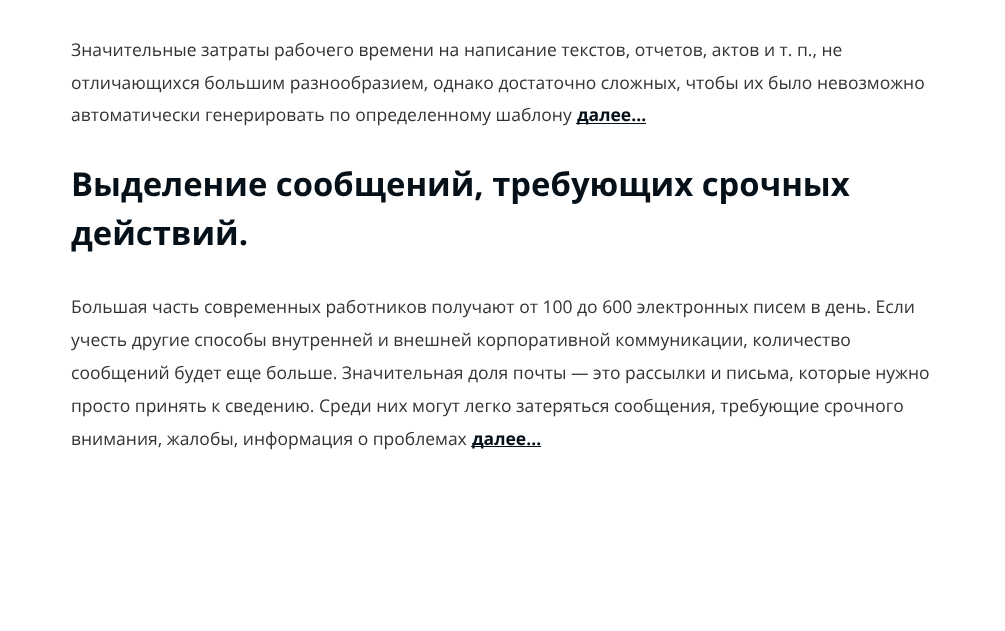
<svg xmlns="http://www.w3.org/2000/svg" width="1005" height="631" viewBox="0 0 1005 631">
  <style>
    .t1 { font: 17.5px Open Sans; fill: #333; }
    .t2 { font: bold 17.5px Open Sans; fill: #061018; }
    .t3 { font: bold 32.8px Open Sans; fill: #061018; }
  </style>
  <rect width="100%" height="100%" fill="#fff"/>
  <text x="71" y="56" class="t1">Значительные затраты рабочего времени на написание текстов, отчетов, актов и т. п., не</text>
  <text x="71" y="89" class="t1">отличающихся большим разнообразием, однако достаточно сложных, чтобы их было невозможно</text>
  <text x="71" y="121" class="t1">автоматически генерировать по определенному шаблону</text>
  <rect x="576" y="123" width="70" height="1" fill="#061018"/>
  <text x="577" y="121" class="t2">далее…</text>
  <text x="71" y="196" class="t3">Выделение сообщений, требующих срочных</text>
  <text x="71" y="245" class="t3">действий.</text>
  <text x="71" y="313" class="t1">Большая часть современных работников получают от 100 до 600 электронных писем в день. Если</text>
  <text x="71" y="346" class="t1">учесть другие способы внутренней и внешней корпоративной коммуникации, количество</text>
  <text x="71" y="379" class="t1">сообщений будет еще больше. Значительная доля почты — это рассылки и письма, которые нужно</text>
  <text x="71" y="412" class="t1">просто принять к сведению. Среди них могут легко затеряться сообщения, требующие срочного</text>
  <text x="71" y="445" class="t1">внимания, жалобы, информация о проблемах</text>
  <rect x="471" y="446" width="70" height="1" fill="#061018"/>
  <text x="472" y="445" class="t2">далее…</text>
</svg>
